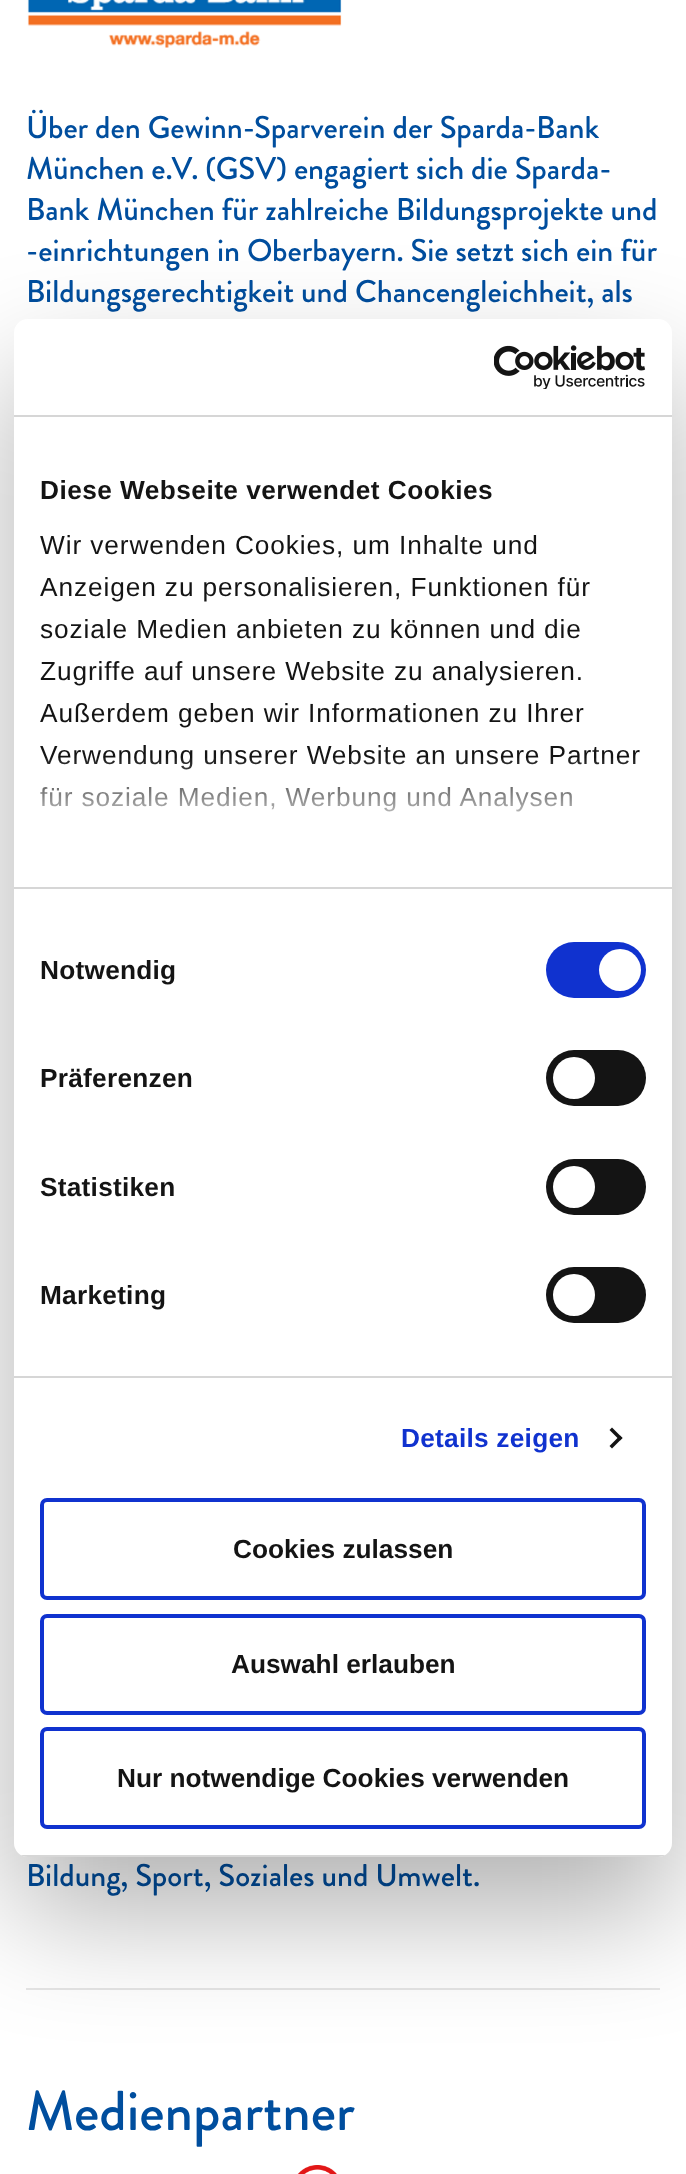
<svg xmlns="http://www.w3.org/2000/svg" width="686" height="2174" viewBox="0 0 686 2174">
  <style>
    .t1 { font: 500 31.5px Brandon; fill: #004e9e; }
    .t2 { font: 500 56px Brandon; fill: #004e9e; }
    .t3 { font: bold 26.25px Liberation Sans; letter-spacing: 0.45px; fill: #141414; }
    .t4 { font: 26.25px Liberation Sans; letter-spacing: 0.9px; fill: #141414; }
    .t5 { font: bold 26.25px Liberation Sans; letter-spacing: 0.25px; fill: #141414; }
    .t6 { font: bold 26.25px Liberation Sans; letter-spacing: 0.25px; fill: #1032cf; }
    .t7 { font: bold 26.25px Liberation Sans; fill: #141414; }
  </style>
  <defs>
    <linearGradient id="g1" gradientUnits="userSpaceOnUse" x1="332" y1="888" x2="332" y2="756"><stop offset="0" stop-color="#fff"/><stop offset="0.5" stop-color="#fff" stop-opacity="0.8"/><stop offset="1" stop-color="#fff" stop-opacity="0"/></linearGradient>
    <clipPath id="clip1"><rect x="14" y="319" width="658" height="1538" rx="14"/></clipPath>
  </defs>
  <rect width="100%" height="100%" fill="#fff"/>
  <image x="27" y="0" width="315" height="48" href="images/1.png"/>
  <text x="26" y="138" class="t1">Über den Gewinn-Sparverein der Sparda-Bank</text>
  <text x="26" y="179" class="t1">München e.V. (GSV) engagiert sich die Sparda-</text>
  <text x="26" y="220" class="t1">Bank München für zahlreiche Bildungsprojekte und</text>
  <text x="26" y="261" class="t1">-einrichtungen in Oberbayern. Sie setzt sich ein für</text>
  <text x="26" y="302" class="t1">Bildungsgerechtigkeit und Chancengleichheit, als</text>
  <text x="26" y="1886" class="t1">Bildung, Sport, Soziales und Umwelt.</text>
  <rect x="26" y="1988" width="634" height="2" fill="#e6e6e6"/>
  <text x="26" y="2130" class="t2">Medienpartner</text>
  <image x="297" y="2165" width="40" height="9" href="images/2.png"/>
  <rect x="14" y="375" width="658" height="1538" rx="14" fill="#0000004d" filter="blur(59.5px)"/>
  <rect x="14" y="319" width="658" height="1538" rx="14" fill="#fff"/>
  <rect x="14" y="415" width="658" height="2" fill="#d6d6d6"/>
  <image x="494" y="345" width="152" height="44" href="images/3.png"/>
  <rect x="14" y="887" width="658" height="2" fill="#d6d6d6"/>
  <text x="40" y="499" class="t3">Diese Webseite verwendet Cookies</text>
  <text x="40" y="554" class="t4">Wir verwenden Cookies, um Inhalte und</text>
  <text x="40" y="596" class="t4">Anzeigen zu personalisieren, Funktionen für</text>
  <text x="40" y="638" class="t4">soziale Medien anbieten zu können und die</text>
  <text x="40" y="680" class="t4">Zugriffe auf unsere Website zu analysieren.</text>
  <text x="40" y="722" class="t4">Außerdem geben wir Informationen zu Ihrer</text>
  <text x="40" y="764" class="t4">Verwendung unserer Website an unsere Partner</text>
  <text x="40" y="806" class="t4">für soziale Medien, Werbung und Analysen</text>
  <rect x="40" y="758" width="595" height="54" fill="url(#g1)"/>
  <rect x="14" y="1376" width="658" height="2" fill="#d6d6d6"/>
  <text x="40" y="979" class="t5">Notwendig</text>
  <rect x="546" y="942" width="100" height="56" rx="28" fill="#1032cf"/>
  <circle cx="620" cy="970" r="21" fill="#fff"/>
  <text x="40" y="1087" class="t5">Präferenzen</text>
  <rect x="546" y="1050" width="100" height="56" rx="28" fill="#141414"/>
  <circle cx="574" cy="1078" r="21" fill="#fff"/>
  <text x="40" y="1196" class="t5">Statistiken</text>
  <rect x="546" y="1159" width="100" height="56" rx="28" fill="#141414"/>
  <circle cx="574" cy="1187" r="21" fill="#fff"/>
  <text x="40" y="1304" class="t5">Marketing</text>
  <rect x="546" y="1267" width="100" height="56" rx="28" fill="#141414"/>
  <circle cx="574" cy="1295" r="21" fill="#fff"/>
  <text x="401" y="1447" class="t6">Details zeigen</text>
  <path d="M612 1427.5L622.5 1438L620 1440.5L609.5 1430Z" fill="#141414"/>
  <path d="M620 1435.5L622.5 1438L612 1448.5L609.5 1446Z" fill="#141414"/>
  <g clip-path="url(#clip1)">
    <rect x="14" y="1855" width="658" height="2" fill="#d6d6d6"/>
  </g>
  <rect x="42" y="1500" width="602" height="98" rx="5" fill="none" stroke="#1032cf" stroke-width="4"/>
  <text x="233" y="1558" class="t7">Cookies zulassen</text>
  <rect x="42" y="1616" width="602" height="97" rx="5" fill="none" stroke="#1032cf" stroke-width="4"/>
  <text x="231" y="1673" class="t7">Auswahl erlauben</text>
  <rect x="42" y="1729" width="602" height="98" rx="5" fill="none" stroke="#1032cf" stroke-width="4"/>
  <text x="117" y="1787" class="t7">Nur notwendige Cookies verwenden</text>
</svg>
